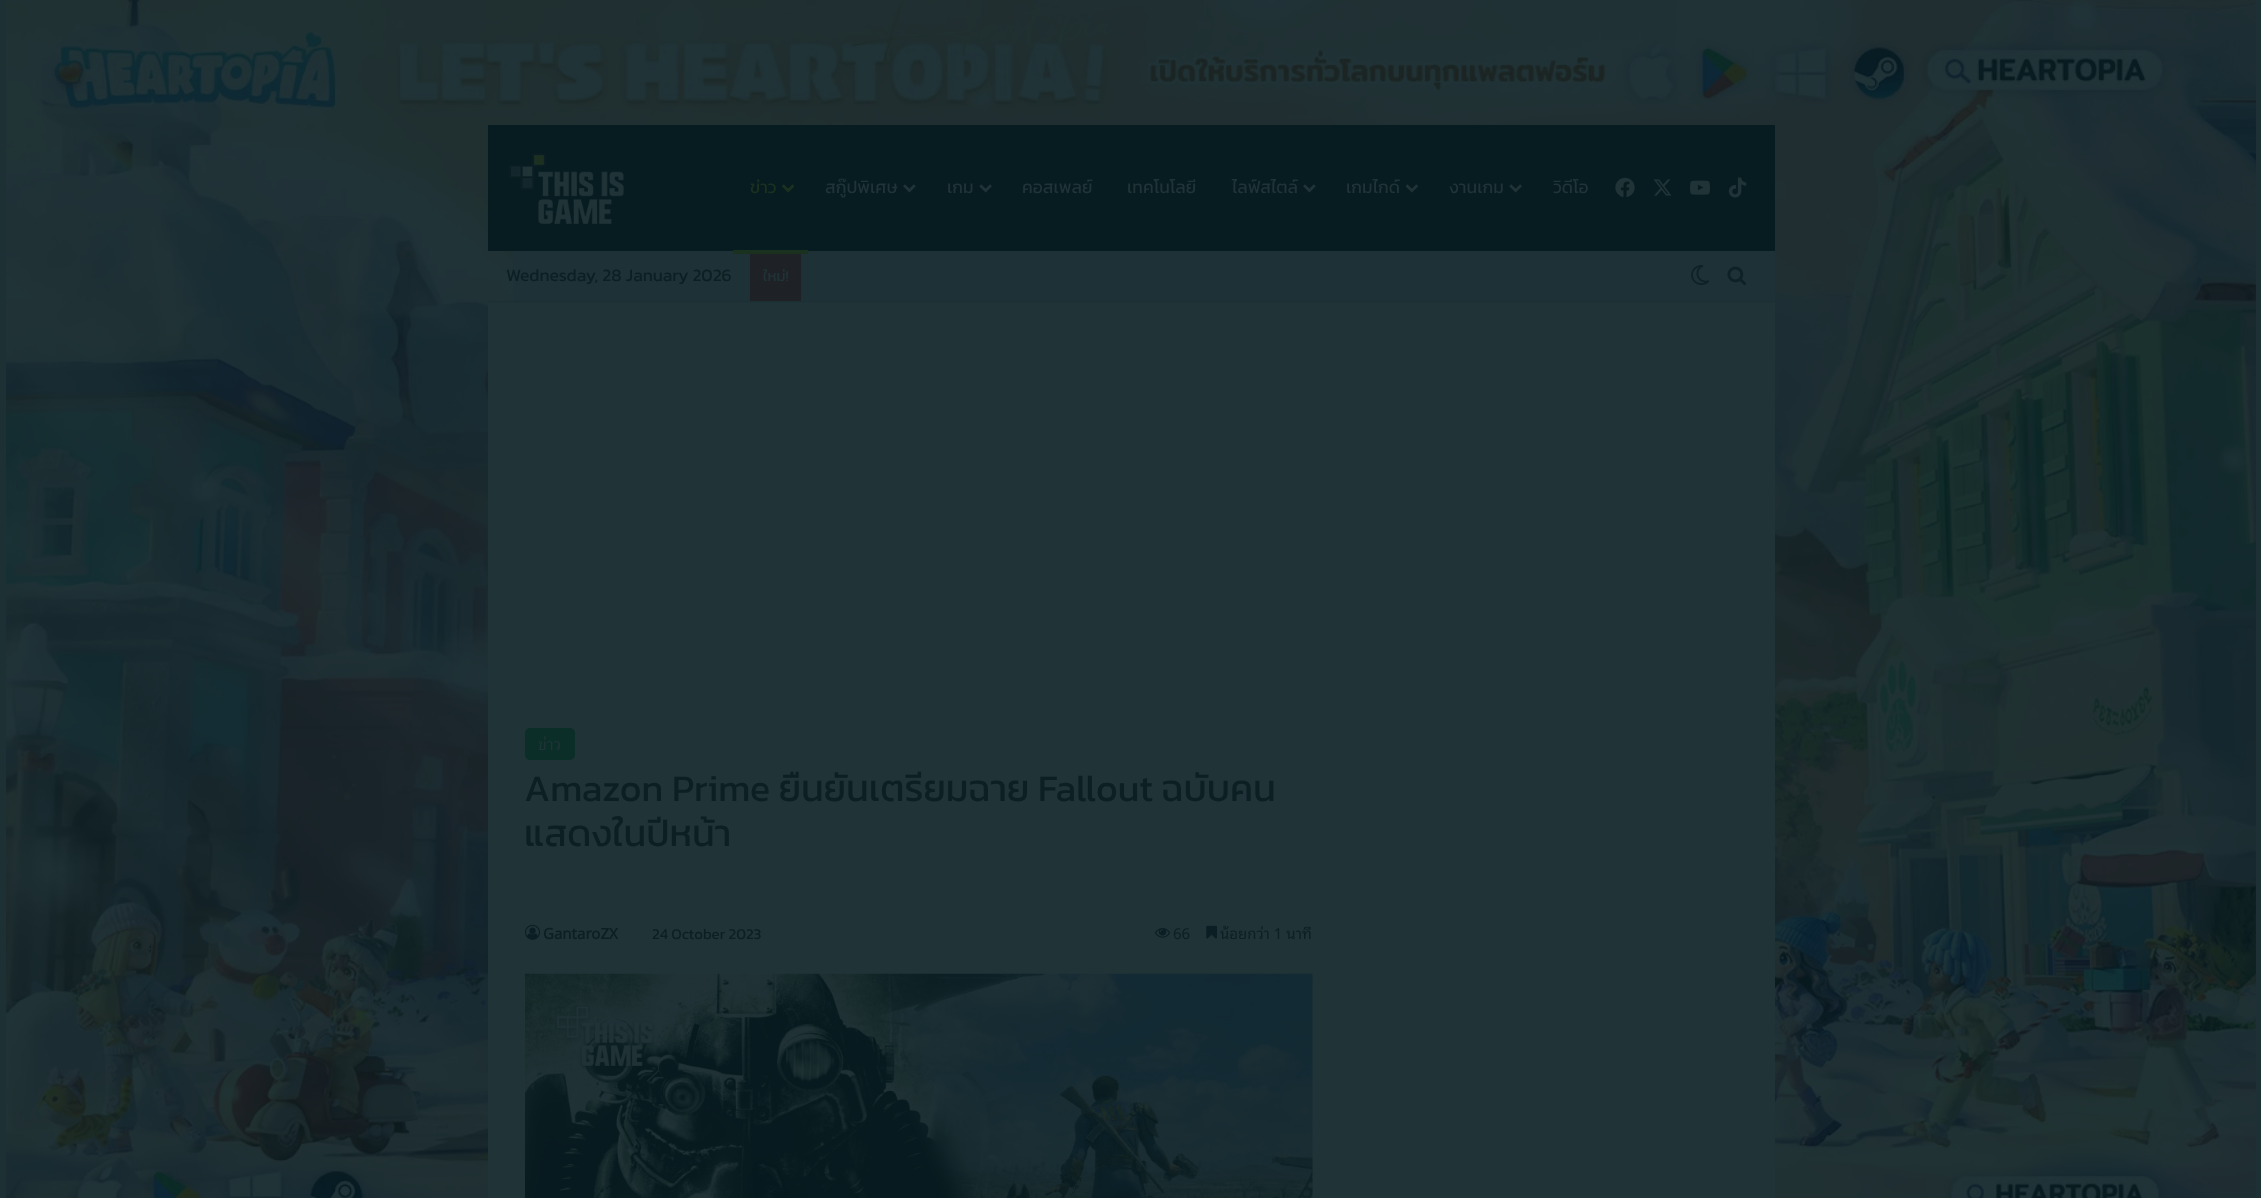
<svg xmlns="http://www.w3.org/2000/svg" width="2261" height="1198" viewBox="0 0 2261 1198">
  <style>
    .t1 { font: 17.5px Kanit; fill: #1a311f; }
    .t2 { font: 17.5px Kanit; fill: #203337; }
    .t3 { font: 17.5px Kanit; fill: #0c1f23; }
    .t4 { font: 15px Kanit; fill: #203337; }
    .t5 { font: 16px Noto Sans Thai Looped; fill: #203337; }
    .t6 { font: 37.5px Kanit; fill: #0c1f23; }
    .t7 { font: bold 15px Noto Sans Thai Looped; fill: #0c1f23; }
    .t8 { font: 15px Kanit; fill: #0c1f23; }
    .t9 { font: 15px Noto Sans Thai Looped; fill: #0c1f23; }
  </style>
  <rect width="100%" height="100%" fill="#1d3034"/>
  <image x="6" y="0" width="2250" height="1198" href="images/1.png"/>
  <rect x="488" y="303" width="1287" height="895" fill="#203337"/>
  <rect x="488" y="125" width="1287" height="126" fill="#071c21"/>
  <image x="508" y="153" width="116" height="71" href="images/2.png"/>
  <rect x="513" y="251" width="1262" height="52" fill="#1e3136"/>
  <rect x="733" y="250" width="75" height="4" fill="#1a311f"/>
  <text x="750" y="193" class="t1">ข่าว</text>
  <image x="782" y="184" width="13" height="9" href="images/3.png"/>
  <text x="825" y="193" class="t2">สกู๊ปพิเศษ</text>
  <image x="903" y="184" width="13" height="9" href="images/4.png"/>
  <text x="947" y="193" class="t2">เกม</text>
  <image x="979" y="184" width="13" height="9" href="images/5.png"/>
  <text x="1022" y="193" class="t2">คอสเพลย์</text>
  <text x="1127" y="193" class="t2">เทคโนโลยี</text>
  <text x="1232" y="193" class="t2">ไลฟ์สไตล์</text>
  <image x="1303" y="184" width="13" height="9" href="images/4.png"/>
  <text x="1346" y="193" class="t2">เกมไกด์</text>
  <image x="1405" y="184" width="13" height="9" href="images/6.png"/>
  <text x="1449" y="193" class="t2">งานเกม</text>
  <image x="1509" y="184" width="13" height="9" href="images/5.png"/>
  <text x="1553" y="193" class="t2">วิดีโอ</text>
  <image x="1615" y="177" width="20" height="20" href="images/7.png"/>
  <image x="1653" y="179" width="19" height="17" href="images/8.png"/>
  <image x="1690" y="180" width="20" height="15" href="images/9.png"/>
  <image x="1728" y="177" width="19" height="21" href="images/10.png"/>
  <rect x="488" y="301" width="1287" height="1" fill="#1c2f33"/>
  <text x="506" y="281" class="t3">Wednesday, 28 January 2026</text>
  <rect x="750" y="254" width="51" height="47" fill="#1e2226"/>
  <text x="763" y="281" class="t4">ใหม่!</text>
  <image x="1691" y="265" width="19" height="20" href="images/11.png"/>
  <image x="1727" y="266" width="20" height="20" href="images/12.png"/>
  <rect x="525" y="728" width="50" height="32" rx="5" fill="#0b2e29"/>
  <text x="538" y="750" class="t5">ข่าว</text>
  <text x="524" y="801" class="t6">Amazon Prime ยืนยันเตรียมฉาย Fallout ฉบับคน</text>
  <text x="524" y="846" class="t6">แสดงในปีหน้า</text>
  <image x="525" y="924" width="15" height="16" href="images/13.png"/>
  <text x="543" y="939" class="t7">GantaroZX</text>
  <text x="652" y="939" class="t8">24 October 2023</text>
  <image x="1155" y="928" width="15" height="10" href="images/14.png"/>
  <text x="1173" y="939" class="t9">66</text>
  <image x="1206" y="925" width="11" height="14" href="images/15.png"/>
  <text x="1220" y="939" class="t9">น้อยกว่า 1 นาที</text>
  <image x="525" y="973" width="788" height="225" href="images/16.png"/>
</svg>
